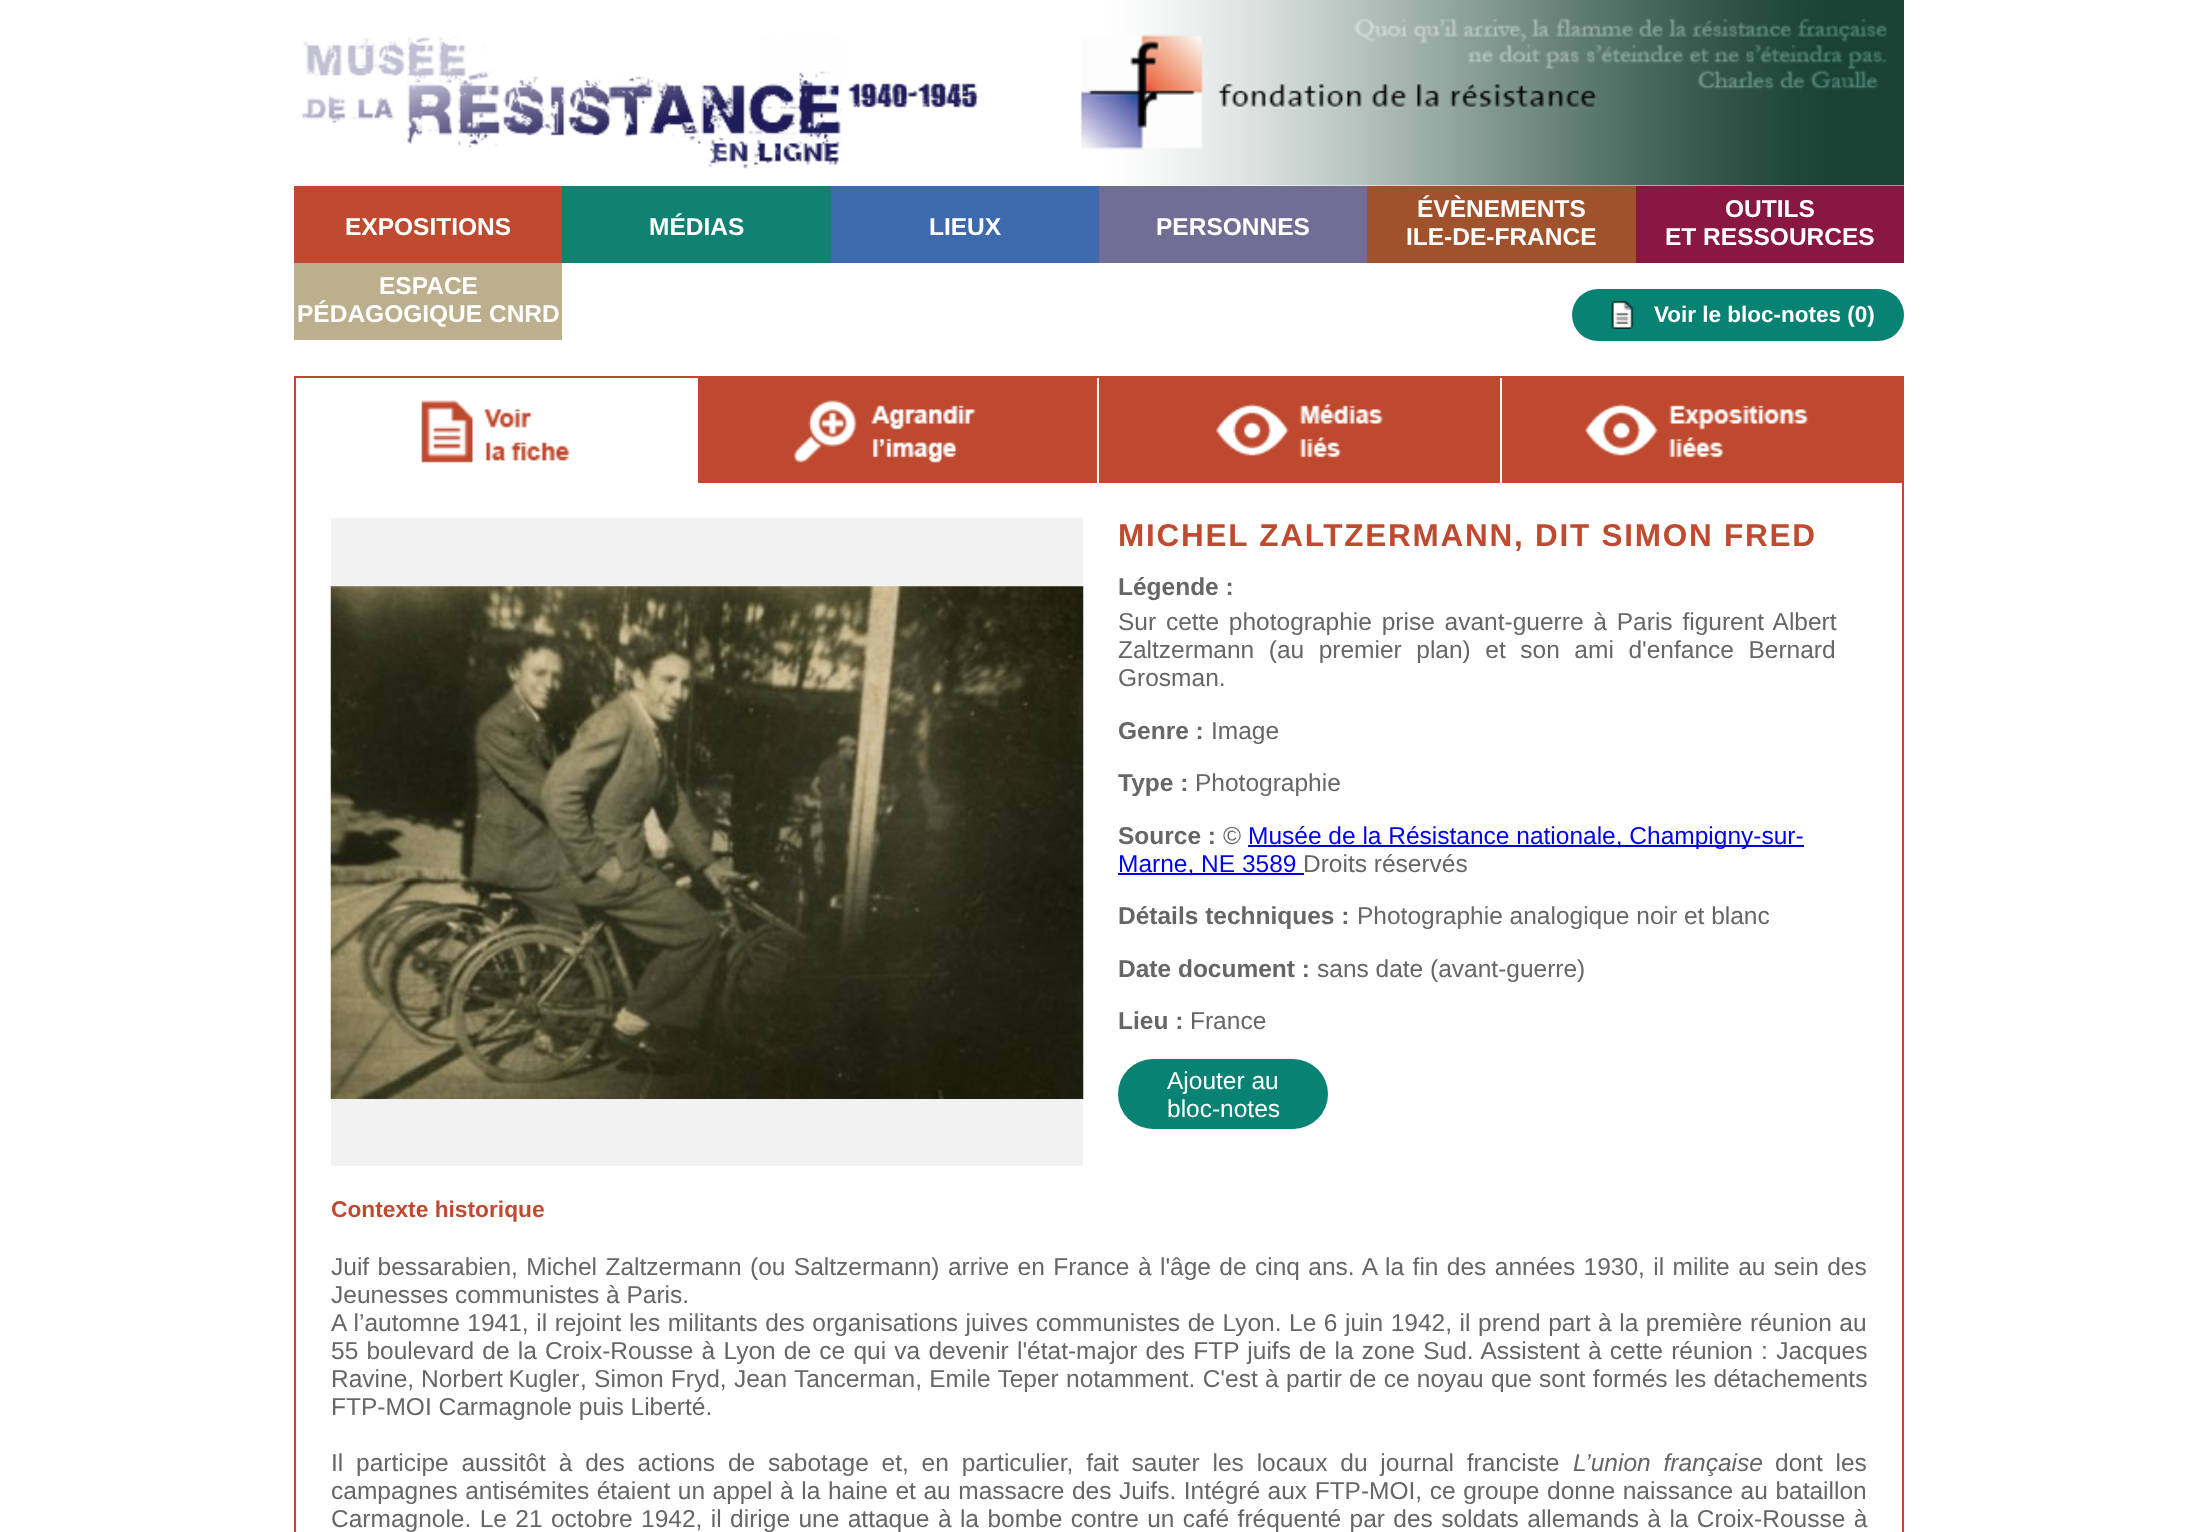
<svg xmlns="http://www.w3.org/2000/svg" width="2198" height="1532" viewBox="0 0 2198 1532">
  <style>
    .t1 { font: bold 24.5px Liberation Sans; fill: #fff; }
    .t2 { font: bold 22.5px Liberation Sans; fill: #fff; }
    .t3 { font: bold 31.5px Liberation Sans; letter-spacing: 1.75px; fill: #bf4a2f; }
    .t4 { font: bold 24.5px Liberation Sans; fill: #666; }
    .t5 { font: 24.5px Liberation Sans; fill: #666; }
    .t6 { font: 24.5px Liberation Sans; fill: #00e; }
    .t7 { font: 24.5px Liberation Sans; fill: #fff; }
    .t8 { font: bold 22.75px Liberation Sans; fill: #bf4a2f; }
    .t9 { font: italic 24.5px Liberation Sans; fill: #666; }
  </style>
  <rect width="100%" height="100%" fill="#fff"/>
  <image x="297" y="36" width="682" height="133" href="images/1.png"/>
  <image x="1080" y="0" width="824" height="186" href="images/2.png"/>
  <rect x="294" y="186" width="268" height="77" fill="#bf4a2f"/>
  <text x="345" y="235" class="t1">EXPOSITIONS</text>
  <rect x="562" y="186" width="269" height="77" fill="#118272"/>
  <text x="649" y="235" class="t1">MÉDIAS</text>
  <rect x="831" y="186" width="268" height="77" fill="#3d6aad"/>
  <text x="929" y="235" class="t1">LIEUX</text>
  <rect x="1099" y="186" width="268" height="77" fill="#726d95"/>
  <text x="1156" y="235" class="t1">PERSONNES</text>
  <rect x="1367" y="186" width="269" height="77" fill="#a0522d"/>
  <text x="1417" y="217" class="t1">ÉVÈNEMENTS</text>
  <text x="1406" y="245" class="t1">ILE-DE-FRANCE</text>
  <rect x="1636" y="186" width="268" height="77" fill="#8a1642"/>
  <text x="1725" y="217" class="t1">OUTILS</text>
  <text x="1665" y="245" class="t1">ET RESSOURCES</text>
  <rect x="294" y="263" width="268" height="77" fill="#bbaf8d"/>
  <text x="379" y="294" class="t1">ESPACE</text>
  <text x="297" y="322" class="t1">PÉDAGOGIQUE CNRD</text>
  <rect x="1572" y="289" width="332" height="52" rx="26" fill="#088273"/>
  <image x="1611" y="301" width="23" height="28" href="images/3.png"/>
  <text x="1654" y="322" class="t2">Voir le bloc-notes (0)</text>
  <rect x="295" y="377" width="1608" height="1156" fill="none" stroke="#bf492e" stroke-width="2"/>
  <image x="421" y="400" width="149" height="63" href="images/4.png"/>
  <rect x="698" y="378" width="399" height="105" fill="#bf492e"/>
  <image x="794" y="400" width="182" height="63" href="images/5.png"/>
  <rect x="1099" y="378" width="401" height="105" fill="#bf492e"/>
  <image x="1215" y="403" width="168" height="55" href="images/6.png"/>
  <rect x="1502" y="378" width="400" height="105" fill="#bf492e"/>
  <image x="1585" y="404" width="224" height="54" href="images/7.png"/>
  <rect x="331" y="518" width="752" height="648" fill="#f2f2f2"/>
  <image x="330" y="586" width="754" height="513" href="images/8.png"/>
  <text x="1118" y="546" class="t3">MICHEL ZALTZERMANN, DIT SIMON FRED</text>
  <text x="1118" y="595" class="t4">Légende :</text>
  <text x="1118" y="630" word-spacing="3" class="t5">Sur cette photographie prise avant-guerre à Paris figurent Albert</text>
  <text x="1118" y="658" word-spacing="7.75" class="t5">Zaltzermann (au premier plan) et son ami d'enfance Bernard</text>
  <text x="1118" y="686" class="t5">Grosman.</text>
  <text x="1118" y="739" class="t4">Genre :</text>
  <text x="1211" y="739" class="t5">Image</text>
  <text x="1118" y="791" class="t4">Type :</text>
  <text x="1195" y="791" class="t5">Photographie</text>
  <text x="1118" y="844" class="t4">Source :</text>
  <text x="1223" y="844" class="t5">©</text>
  <rect x="1248" y="845" width="556" height="2" fill="#00e"/>
  <text x="1248" y="844" class="t6">Musée de la Résistance nationale, Champigny-sur-</text>
  <rect x="1118" y="873" width="186" height="2" fill="#00e"/>
  <text x="1118" y="872" class="t6">Marne, NE 3589</text>
  <text x="1303" y="872" class="t5">Droits réservés</text>
  <text x="1118" y="924" class="t4">Détails techniques :</text>
  <text x="1357" y="924" class="t5">Photographie analogique noir et blanc</text>
  <text x="1118" y="977" class="t4">Date document :</text>
  <text x="1317" y="977" class="t5">sans date (avant-guerre)</text>
  <text x="1118" y="1029" class="t4">Lieu :</text>
  <text x="1190" y="1029" class="t5">France</text>
  <rect x="1118" y="1059" width="210" height="70" rx="35" fill="#088273"/>
  <text x="1167" y="1089" class="t7">Ajouter au</text>
  <text x="1167" y="1117" class="t7">bloc-notes</text>
  <text x="331" y="1217" class="t8">Contexte historique</text>
  <text x="331" y="1275" word-spacing="1.6" class="t5">Juif bessarabien, Michel Zaltzermann (ou Saltzermann) arrive en France à l'âge de cinq ans. A la fin des années 1930, il milite au sein des</text>
  <text x="331" y="1303" class="t5">Jeunesses communistes à Paris.</text>
  <text x="331" y="1331" word-spacing="0.75" class="t5">A l’automne 1941, il rejoint les militants des organisations juives communistes de Lyon. Le 6 juin 1942, il prend part à la première réunion au</text>
  <text x="331" y="1359" word-spacing="1.4" class="t5">55 boulevard de la Croix-Rousse à Lyon de ce qui va devenir l'état-major des FTP juifs de la zone Sud. Assistent à cette réunion : Jacques</text>
  <text x="331" y="1387" class="t5">Ravine,</text>
  <text x="421" y="1387" word-spacing="-1" class="t5">Norbert Kugler</text>
  <text x="580" y="1387" word-spacing="0.5" class="t5">, Simon Fryd, Jean Tancerman, Emile Teper notamment. C'est à partir de ce noyau que sont formés les détachements</text>
  <text x="331" y="1415" class="t5">FTP-MOI Carmagnole puis Liberté.</text>
  <text x="331" y="1471" word-spacing="6" class="t5">Il participe aussitôt à des actions de sabotage et, en particulier, fait sauter les locaux du journal franciste</text>
  <text x="1573" y="1471" word-spacing="6" class="t9">L’union française</text>
  <text x="1775" y="1471" word-spacing="6" class="t5">dont les</text>
  <text x="331" y="1499" word-spacing="0.75" class="t5">campagnes antisémites étaient un appel à la haine et au massacre des Juifs. Intégré aux FTP-MOI, ce groupe donne naissance au bataillon</text>
  <text x="331" y="1527" word-spacing="1.6" class="t5">Carmagnole. Le 21 octobre 1942, il dirige une attaque à la bombe contre un café fréquenté par des soldats allemands à la Croix-Rousse à</text>
</svg>
